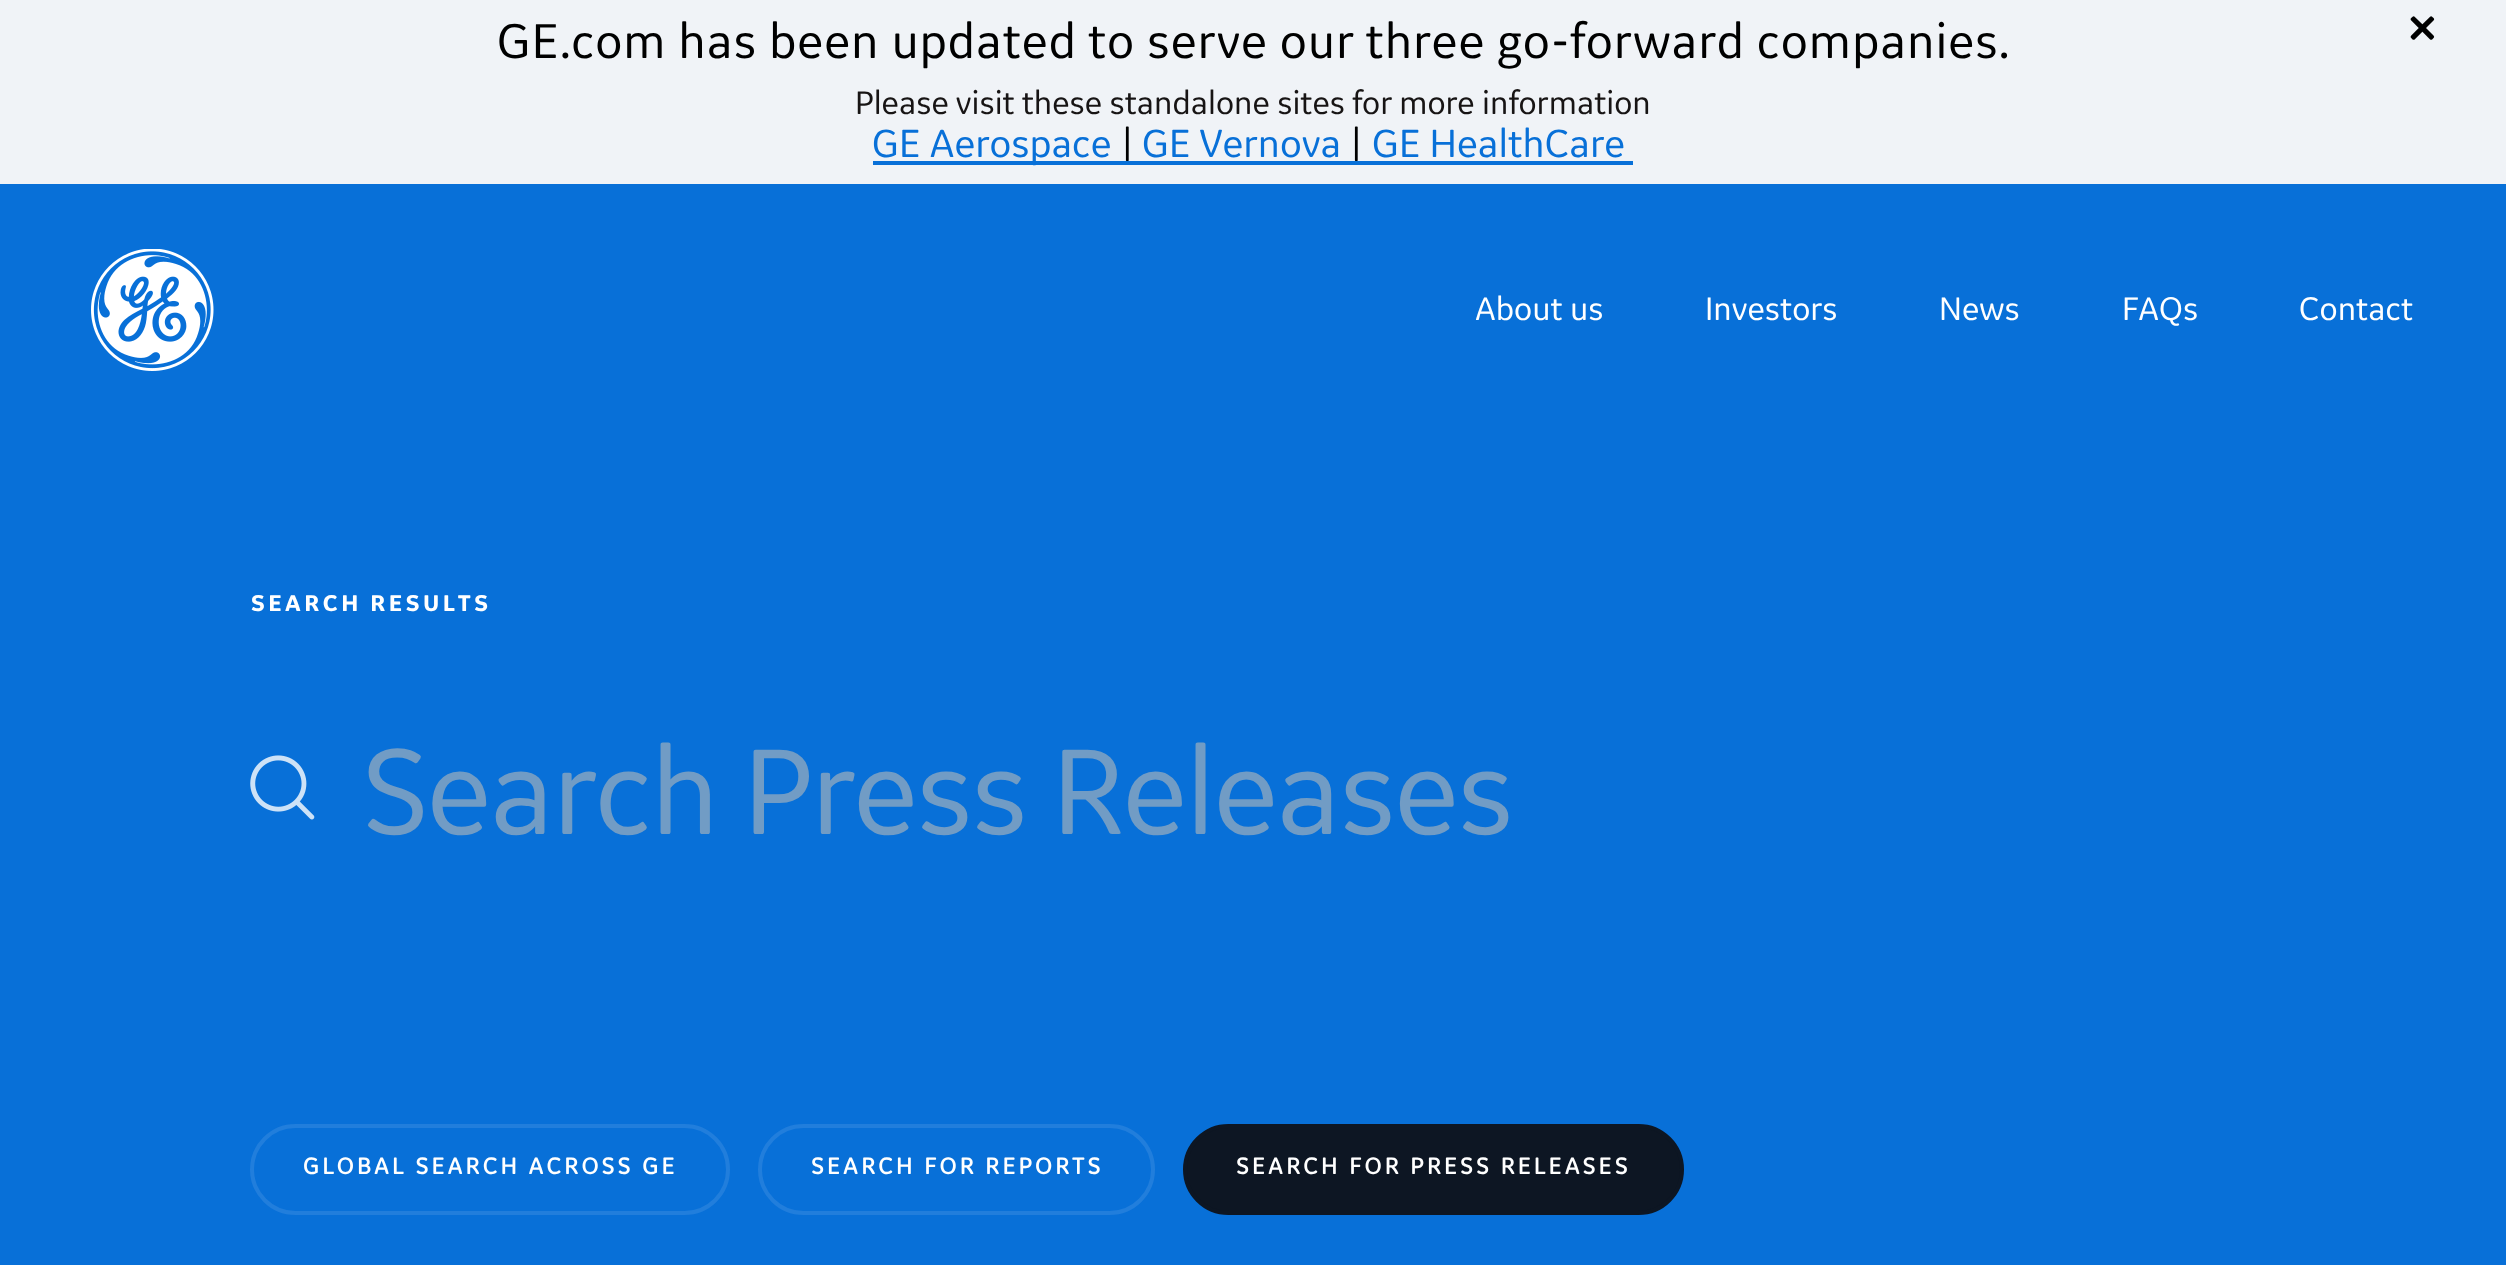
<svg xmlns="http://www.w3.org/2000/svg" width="2506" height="1265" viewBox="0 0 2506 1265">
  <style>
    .t1 { font: 52.4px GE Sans; letter-spacing: 0.88px; fill: #000; }
    .t2 { font: 35px GE Sans; fill: #171414; }
    .t3 { font: 42px GE Sans; fill: #0870d8; }
    .t4 { font: 42px GE Sans; fill: #000; }
    .t5 { font: bold 56px 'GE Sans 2'; fill: #000; }
    .t6 { font: 35px GE Sans; fill: #fff; }
    .t7 { font: bold 24.5px GE Sans; letter-spacing: 3.5px; fill: #fff; }
    .t8 { font: 130.5px GE Sans; letter-spacing: -1.7px; fill: #719cc5; }
    .t9 { font: bold 24.5px 'GE Sans 2'; letter-spacing: 3.5px; fill: #fff; }
  </style>
  <rect width="100%" height="100%" fill="#f0f3f7"/>
  <text x="497" y="58" class="t1">GE.com has been updated to serve our three go-forward companies.</text>
  <text x="855" y="114" class="t2">Please visit these standalone sites for more information</text>
  <rect x="873" y="161" width="760" height="4" fill="#0870d8"/>
  <text x="872" y="157" class="t3">GE Aerospace</text>
  <text x="1121" y="157" class="t4">|</text>
  <text x="1142" y="157" class="t3">GE Vernova</text>
  <text x="1350" y="157" class="t4">|</text>
  <text x="1372" y="157" class="t3">GE HealthCare</text>
  <text x="2407" y="42" class="t5">×</text>
  <rect x="0" y="184" width="2506" height="1081" fill="#0870d8"/>
  <image x="91" y="249" width="123" height="122" href="images/1.png"/>
  <text x="1475" y="320" class="t6">About us</text>
  <text x="1705" y="320" class="t6">Investors</text>
  <text x="1939" y="320" class="t6">News</text>
  <text x="2122" y="320" class="t6">FAQs</text>
  <text x="2299" y="320" class="t6">Contact</text>
  <text x="251" y="611" class="t7">SEARCH RESULTS</text>
  <image x="250" y="755" width="65" height="65" href="images/2.png"/>
  <text x="362" y="834" class="t8">Search Press Releases</text>
  <rect x="252" y="1126" width="476" height="87" rx="43.5" fill="none" stroke="#217edc" stroke-width="4"/>
  <text x="303" y="1174" class="t9">GLOBAL SEARCH ACROSS GE</text>
  <rect x="760" y="1126" width="393" height="87" rx="43.5" fill="none" stroke="#217edc" stroke-width="4"/>
  <text x="811" y="1174" class="t9">SEARCH FOR REPORTS</text>
  <rect x="1185" y="1126" width="497" height="87" rx="43.5" fill="#0d1623" stroke="#0d1623" stroke-width="4"/>
  <text x="1236" y="1174" class="t9">SEARCH FOR PRESS RELEASES</text>
</svg>
